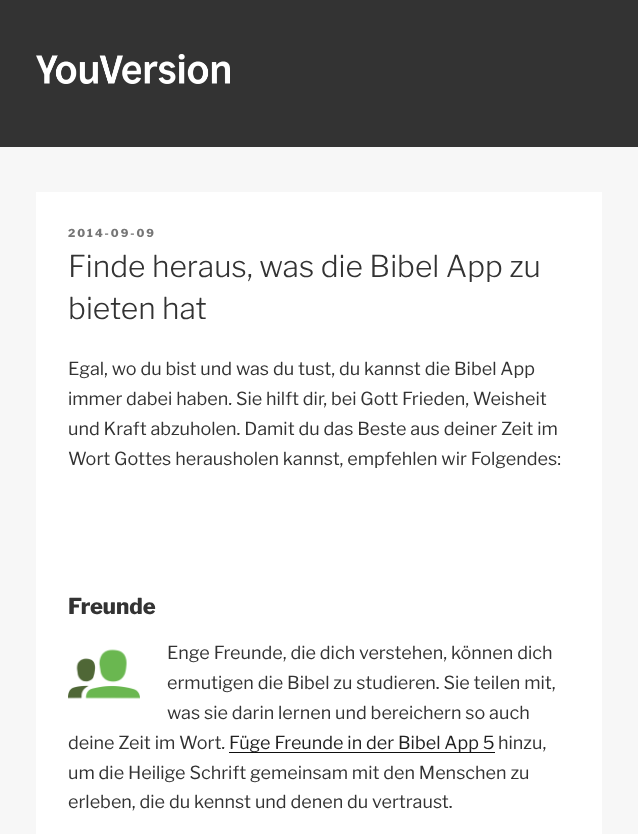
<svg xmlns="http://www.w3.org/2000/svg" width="638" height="834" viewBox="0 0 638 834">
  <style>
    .t1 { font: 800 11px Libre Franklin; letter-spacing: 2px; fill: #767676; }
    .t2 { font: 300 30px Libre Franklin; fill: #333; }
    .t3 { font: 18px Libre Franklin; fill: #333; }
    .t4 { font: 800 22px Libre Franklin; fill: #333; }
    .t5 { font: 18px Libre Franklin; fill: #222; }
  </style>
  <rect width="100%" height="100%" fill="#333"/>
  <image x="36" y="54" width="194" height="30" href="images/1.png"/>
  <rect x="0" y="147" width="638" height="687" fill="#f7f7f7"/>
  <rect x="36" y="192" width="566" height="642" fill="#fff"/>
  <text x="68" y="237" class="t1">2014-09-09</text>
  <text x="68" y="277" class="t2">Finde heraus, was die Bibel App zu</text>
  <text x="68" y="319" class="t2">bieten hat</text>
  <text x="68" y="375" class="t3">Egal, wo du bist und was du tust, du kannst die Bibel App</text>
  <text x="68" y="405" class="t3">immer dabei haben. Sie hilft dir, bei Gott Frieden, Weisheit</text>
  <text x="68" y="435" class="t3">und Kraft abzuholen. Damit du das Beste aus deiner Zeit im</text>
  <text x="68" y="465" class="t3">Wort Gottes herausholen kannst, empfehlen wir Folgendes:</text>
  <text x="68" y="614" class="t4">Freunde</text>
  <image x="68" y="649" width="72" height="50" href="images/2.png"/>
  <text x="167" y="659" class="t3">Enge Freunde, die dich verstehen, können dich</text>
  <text x="167" y="689" class="t3">ermutigen die Bibel zu studieren. Sie teilen mit,</text>
  <text x="167" y="719" class="t3">was sie darin lernen und bereichern so auch</text>
  <text x="68" y="749" class="t3">deine Zeit im Wort.</text>
  <rect x="229" y="752" width="266" height="1" fill="#0f0f0f"/>
  <text x="229" y="749" class="t5">Füge Freunde in der Bibel App 5</text>
  <text x="498" y="749" class="t3">hinzu,</text>
  <text x="68" y="779" class="t3">um die Heilige Schrift gemeinsam mit den Menschen zu</text>
  <text x="68" y="808" class="t3">erleben, die du kennst und denen du vertraust.</text>
</svg>
